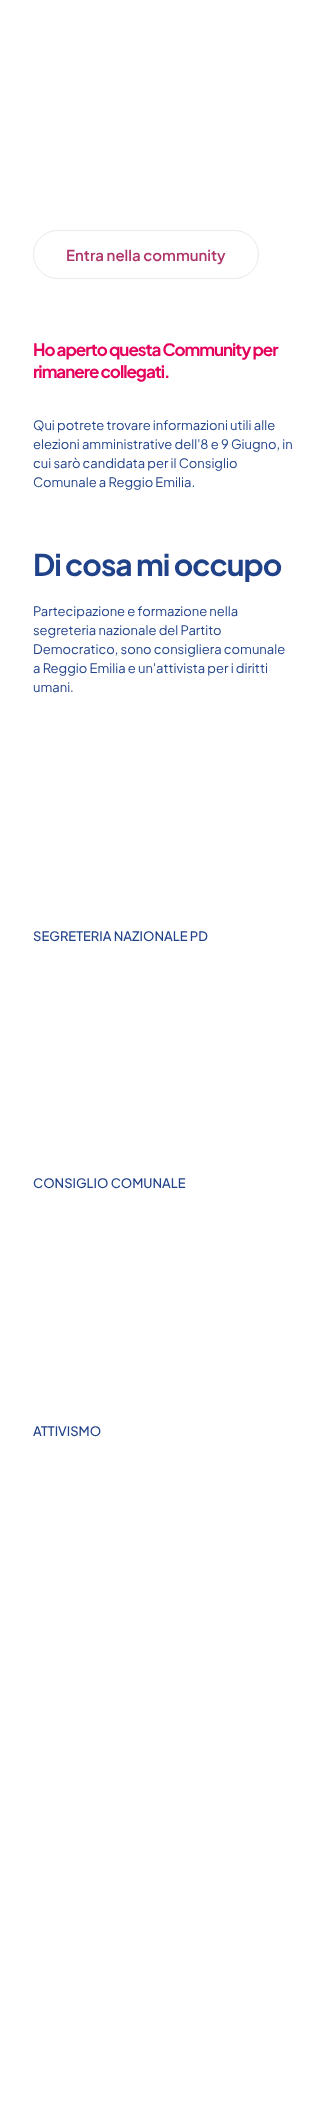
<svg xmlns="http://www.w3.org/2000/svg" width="326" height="2123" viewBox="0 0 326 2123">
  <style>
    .t1 { font: 600 15px Plus Jakarta Sans; fill: #ae366a; }
    .t2 { font: bold 17px Plus Jakarta Sans; letter-spacing: -1px; fill: #e5005c; }
    .t3 { font: 13px Plus Jakarta Sans; fill: #204289; }
    .t4 { font: bold 30px Plus Jakarta Sans; letter-spacing: -1px; fill: #204289; }
    .t5 { font: 500 13px Plus Jakarta Sans; fill: #204289; }
  </style>
  <rect width="100%" height="100%" fill="#fff"/>
  <rect x="33.5" y="230.5" width="225" height="48" rx="24" fill="none" stroke="#eaeaea"/>
  <text x="66" y="261" class="t1">Entra nella community</text>
  <text x="33" y="356" class="t2">Ho aperto questa Community per</text>
  <text x="33" y="378" class="t2">rimanere collegati.</text>
  <text x="33" y="430" class="t3">Qui potrete trovare informazioni utili alle</text>
  <text x="33" y="449" class="t3">elezioni amministrative dell'8 e 9 Giugno, in</text>
  <text x="33" y="468" class="t3">cui sarò candidata per il Consiglio</text>
  <text x="33" y="487" class="t3">Comunale a Reggio Emilia.</text>
  <text x="33" y="576" class="t4">Di cosa mi occupo</text>
  <text x="33" y="616" class="t3">Partecipazione e formazione nella</text>
  <text x="33" y="635" class="t3">segreteria nazionale del Partito</text>
  <text x="33" y="654" class="t3">Democratico, sono consigliera comunale</text>
  <text x="33" y="673" class="t3">a Reggio Emilia e un'attivista per i diritti</text>
  <text x="33" y="692" class="t3">umani.</text>
  <text x="33" y="941" class="t5">SEGRETERIA NAZIONALE PD</text>
  <text x="33" y="1188" class="t5">CONSIGLIO COMUNALE</text>
  <text x="33" y="1436" class="t5">ATTIVISMO</text>
</svg>
